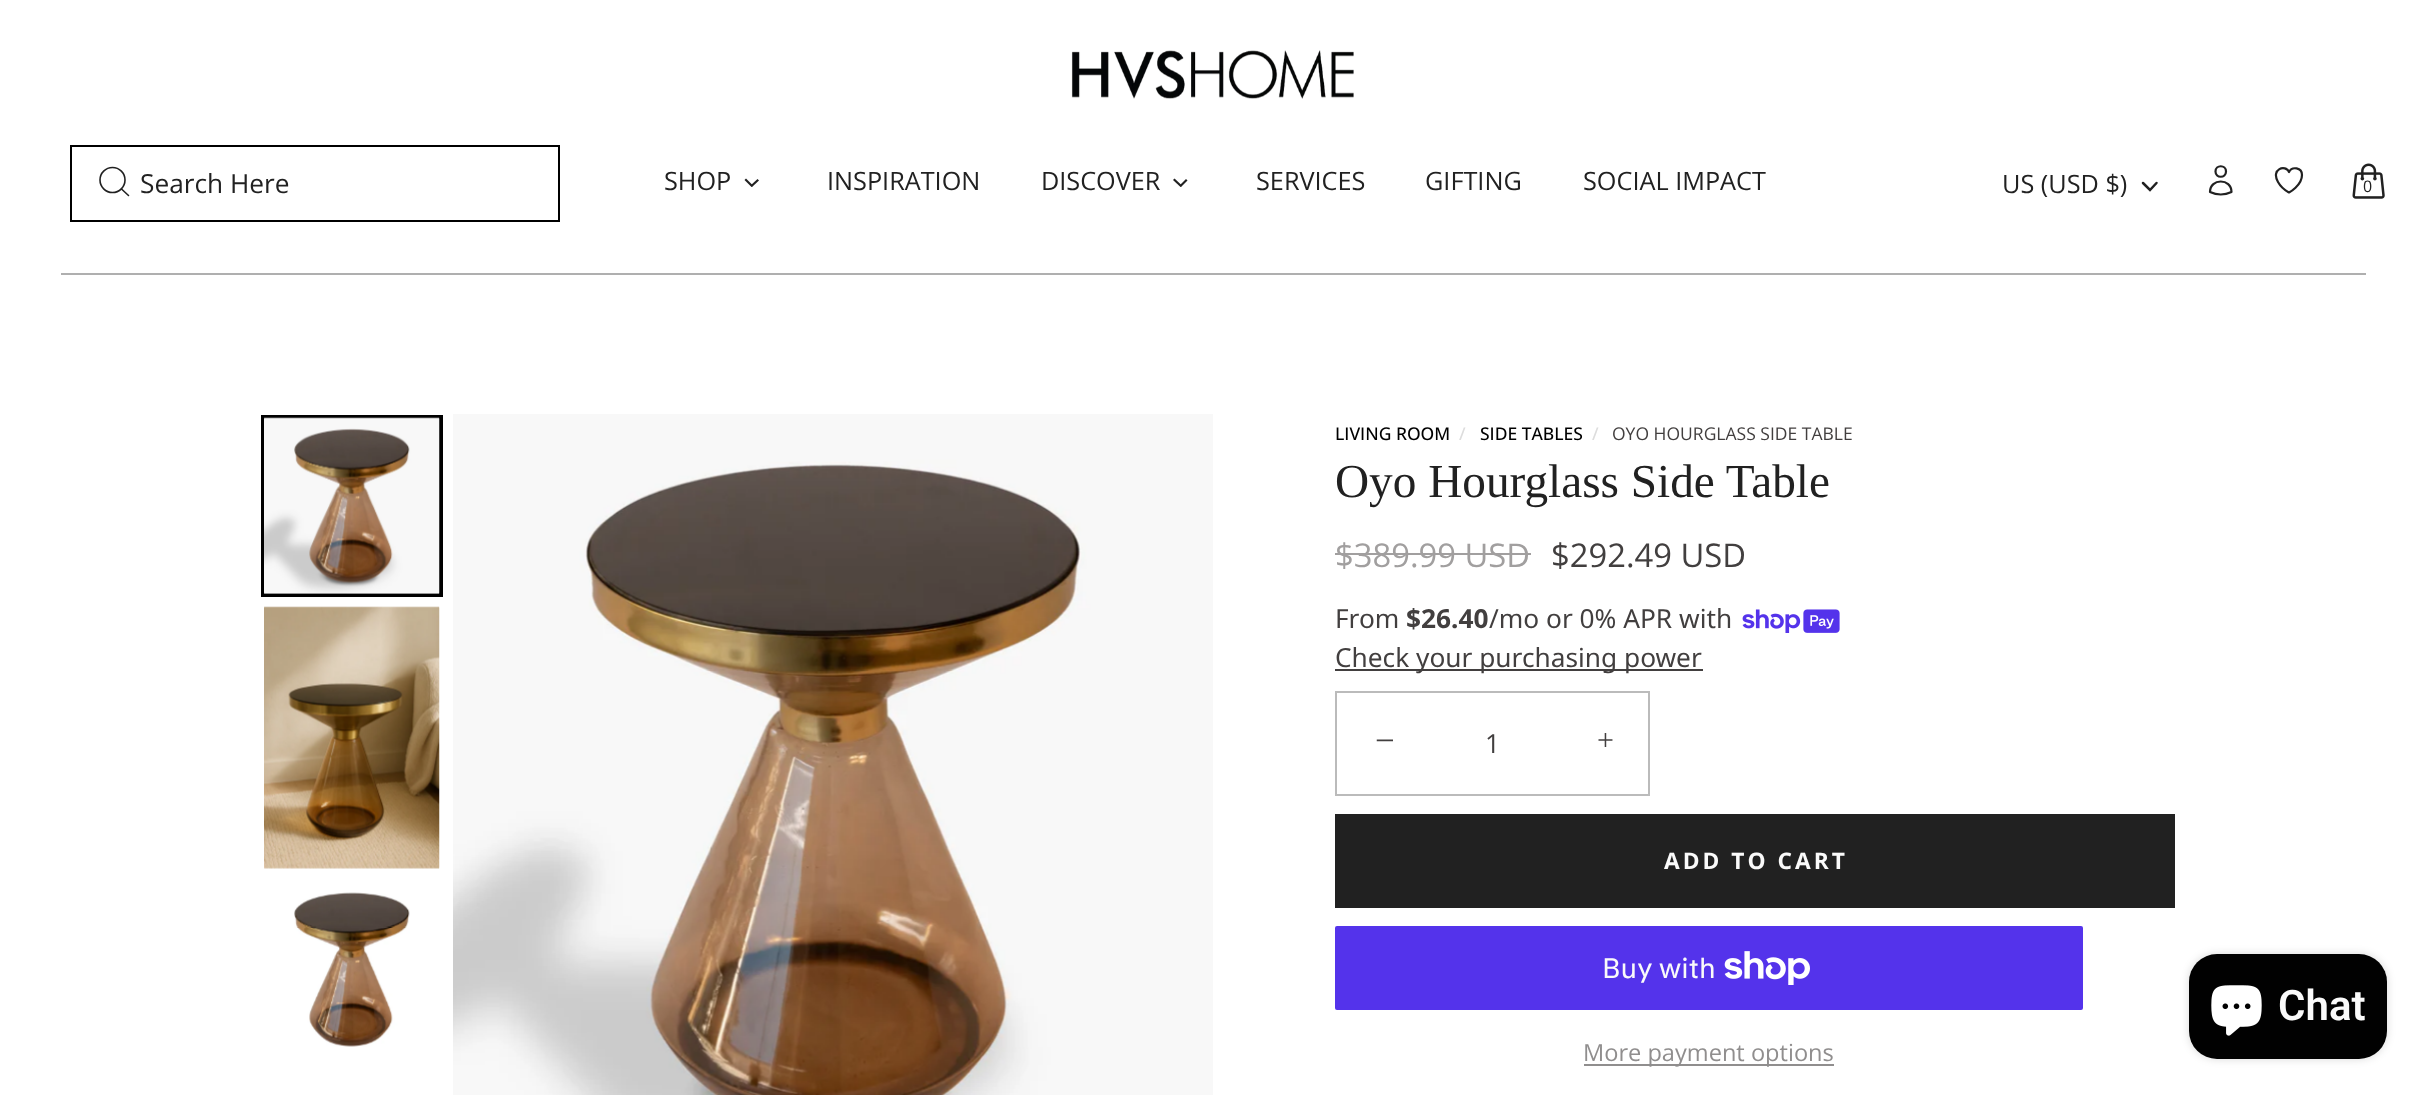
<svg xmlns="http://www.w3.org/2000/svg" width="2424" height="1095" viewBox="0 0 2424 1095">
  <style>
    .t1 { font: 25.25px Open Sans; fill: #212121; }
    .t2 { font: 26.25px Open Sans; fill: #212121; }
    .t3 { font: 16px Open Sans; fill: #212121; }
    .t4 { font: 500 17.5px Open Sans; fill: #000; }
    .t5 { font: 500 17.5px Open Sans; fill: #ddd; }
    .t6 { font: 17.5px Open Sans; fill: #423f3f; }
    .t7 { font: 47.25px Liberation Serif; fill: #212121; }
    .t8 { font: 32.75px Open Sans; fill: #a19f9f; }
    .t9 { font: 32.75px Open Sans; fill: #423f3f; }
    .t10 { font: 26.25px Noto Sans; fill: #423f3f; }
    .t11 { font: bold 26.25px Noto Sans; fill: #423f3f; }
    .t12 { font: 35px Liberation Serif; fill: #423f3f; }
    .t13 { font: 26.25px Open Sans; letter-spacing: 1px; fill: #423f3f; }
    .t14 { font: 30px Liberation Serif; fill: #423f3f; }
    .t15 { font: bold 22.75px Open Sans; letter-spacing: 3px; fill: #fafafa; }
    .t16 { font: 28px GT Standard; fill: #fafafa; }
    .t17 { font: 23.6px Open Sans; fill: #908e8e; }
    .t18 { font: 600 42px Roboto; fill: #fafafa; }
  </style>
  <rect width="100%" height="100%" fill="#fff"/>
  <image x="1071" y="50" width="283" height="49" href="images/1.png"/>
  <text x="664" y="190" class="t1">SHOP</text>
  <path d="M757.5 179L759 180.5L752 187L750.5 185.5Z" fill="#212121"/>
  <path d="M746 178.5L753 185.5L751.5 187L744.5 180Z" fill="#212121"/>
  <text x="827" y="190" class="t1">INSPIRATION</text>
  <text x="1041" y="190" class="t1">DISCOVER</text>
  <path d="M1186 179L1187.5 180.5L1181 187L1179.5 185.5Z" fill="#212121"/>
  <path d="M1174.5 178.5L1182 185.5L1180.5 187L1173 180Z" fill="#212121"/>
  <text x="1256" y="190" class="t1">SERVICES</text>
  <text x="1425" y="190" class="t1">GIFTING</text>
  <text x="1583" y="190" class="t1">SOCIAL IMPACT</text>
  <rect x="71" y="146" width="488" height="75" fill="none" stroke="#000" stroke-width="2"/>
  <circle cx="112.5" cy="180" r="12.5" fill="none" stroke="#212121" stroke-width="1.6"/>
  <path d="M128.5 195.5L121.5 189" fill="none" stroke="#212121" stroke-width="1.6" stroke-linecap="round" stroke-linejoin="round"/>
  <text x="140" y="193" class="t2">Search Here</text>
  <text x="2002" y="193" class="t1">US (USD $)</text>
  <path d="M2143 183L2150 190L2156.5 183" fill="none" stroke="#212121" stroke-width="2.5" stroke-linecap="round"/>
  <path d="M2226 171.5C2226 178.5 2215.5 178.5 2215.5 171.5C2215.5 164.5 2226 164.5 2226 171.5ZM2210 192C2210 178 2231.5 178 2231.5 192C2225 195 2216.5 195 2210 192Z" fill="none" stroke="#212121" stroke-width="2.2" stroke-linecap="round" stroke-linejoin="round"/>
  <path d="M2302 175C2302 167.5 2292 166 2289 172C2285.5 164 2270.5 169 2278 182C2280.5 186.5 2284.5 190 2289 192.5C2289 192.5 2302 185.5 2302 175Z" fill="none" stroke="#212121" stroke-width="2.2" stroke-linecap="round" stroke-linejoin="round"/>
  <image x="2352" y="163" width="33" height="36" href="images/2.png"/>
  <text x="2363" y="192" class="t3">0</text>
  <rect x="61" y="273" width="2305" height="2" fill="#afafaf"/>
  <rect x="263" y="417" width="178" height="178" fill="none" stroke="#000" stroke-width="4"/>
  <image x="264" y="417" width="176" height="177" href="images/3.png"/>
  <image x="264" y="417" width="175" height="177" href="images/4.png"/>
  <image x="264" y="606" width="176" height="263" href="images/5.png"/>
  <image x="264" y="606" width="175" height="263" href="images/6.png"/>
  <image x="294" y="892" width="116" height="155" href="images/7.png"/>
  <image x="453" y="414" width="760" height="681" href="images/8.png"/>
  <image x="587" y="465" width="486" height="630" href="images/9.png"/>
  <text x="1335" y="440" class="t4">LIVING ROOM</text>
  <text x="1459" y="440" class="t5">/</text>
  <text x="1480" y="440" class="t4">SIDE TABLES</text>
  <text x="1592" y="440" class="t5">/</text>
  <text x="1612" y="440" class="t6">OYO HOURGLASS SIDE TABLE</text>
  <text x="1335" y="497" class="t7">Oyo Hourglass Side Table</text>
  <text x="1335" y="567" class="t8">$389.99 USD</text>
  <rect x="1335" y="553" width="196" height="2" fill="#a19f9f"/>
  <text x="1551" y="567" class="t9">$292.49 USD</text>
  <text x="1335" y="628" class="t10">From</text>
  <text x="1406" y="628" class="t11">$26.40</text>
  <text x="1489" y="628" class="t10">/mo or 0% APR with</text>
  <image x="1742" y="609" width="98" height="24" href="images/10.png"/>
  <rect x="1335" y="669" width="368" height="2" fill="#423f3f"/>
  <text x="1335" y="667" class="t10">Check your purchasing power</text>
  <rect x="1336" y="692" width="313" height="103" fill="none" stroke="#bbb" stroke-width="2"/>
  <text x="1375" y="752" class="t12">−</text>
  <text x="1485" y="753" class="t13">1</text>
  <text x="1597" y="750" class="t14">+</text>
  <rect x="1335" y="814" width="840" height="94" fill="#212121"/>
  <text x="1664" y="869" class="t15">ADD TO CART</text>
  <rect x="1335" y="926" width="748" height="84" rx="2" fill="#5433eb"/>
  <text x="1602" y="978" class="t16">Buy with</text>
  <image x="1724" y="951" width="86" height="34" href="images/11.png"/>
  <rect x="1584" y="1064" width="250" height="2" fill="#908e8e"/>
  <text x="1583" y="1061" class="t17">More payment options</text>
  <rect x="2189" y="954" width="198" height="105" rx="28" fill="#00000026" filter="blur(4.5px)"/>
  <rect x="2189" y="954" width="198" height="105" rx="28" fill="#010101"/>
  <image x="2211" y="985" width="51" height="51" href="images/12.png"/>
  <text x="2278" y="1020" class="t18">Chat</text>
</svg>
